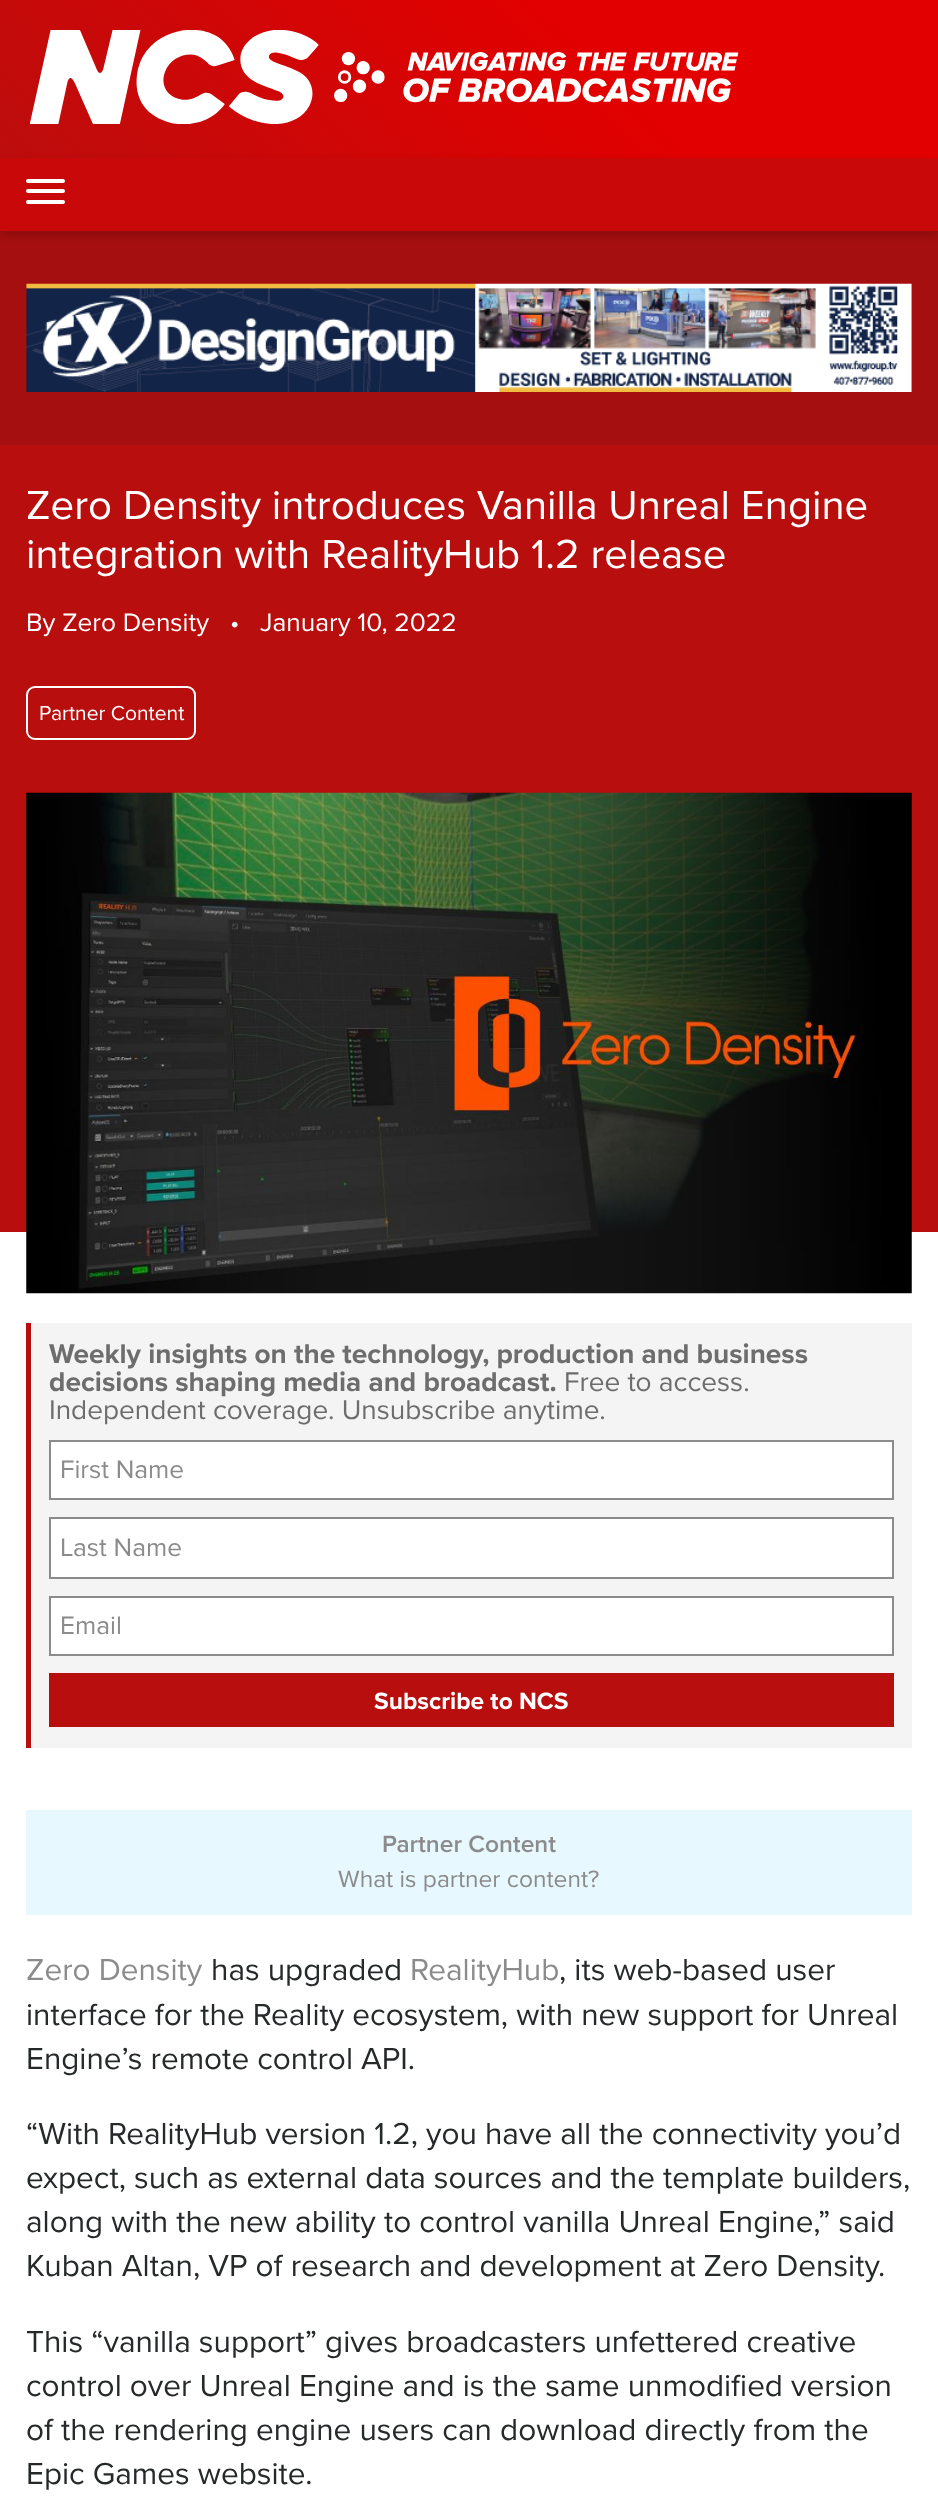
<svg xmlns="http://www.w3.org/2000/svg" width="938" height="2509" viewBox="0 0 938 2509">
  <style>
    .t1 { font: 42px Proxima Nova; fill: #fff; }
    .t2 { font: 26.25px Proxima Nova; fill: #fff; }
    .t3 { font: 21px Proxima Nova; fill: #fff; }
    .t4 { font: bold 28px Proxima Nova; fill: #6d6d6d; }
    .t5 { font: 28px Proxima Nova; fill: #6d6d6d; }
    .t6 { font: 26.25px Proxima Nova; fill: #8b8b8b; }
    .t7 { font: bold 24.5px Proxima Nova; fill: #fff; }
    .t8 { font: 600 24.5px Proxima Nova; fill: #8b8b8b; }
    .t9 { font: 24.5px Proxima Nova; fill: #8b8b8b; }
    .t10 { font: 31.5px Proxima Nova; fill: #8b8b8b; }
    .t11 { font: 31.5px Proxima Nova; fill: #26292a; }
  </style>
  <defs>
    <linearGradient id="g1" gradientUnits="userSpaceOnUse" x1="177" y1="408" x2="761" y2="-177"><stop offset="0" stop-color="#b80e0e"/><stop offset="0.67" stop-color="#e30000"/></linearGradient>
  </defs>
  <rect width="100%" height="100%" fill="#fff"/>
  <rect x="0" y="0" width="938" height="158" fill="url(#g1)"/>
  <image x="30" y="30" width="709" height="94" href="images/1.png"/>
  <rect x="0" y="231" width="938" height="214" fill="#a60f0f"/>
  <rect x="0" y="163" width="938" height="73" fill="#00000029" filter="blur(5px)"/>
  <rect x="0" y="158" width="938" height="73" fill="#c90909"/>
  <rect x="26" y="179" width="39" height="4" rx="2" fill="#fff"/>
  <rect x="26" y="189" width="39" height="4" rx="2" fill="#fff"/>
  <rect x="26" y="200" width="39" height="4" rx="2" fill="#fff"/>
  <image x="26" y="283" width="886" height="109" href="images/2.png"/>
  <rect x="0" y="445" width="938" height="787" fill="#b80e0e"/>
  <text x="26" y="519" class="t1">Zero Density introduces Vanilla Unreal Engine</text>
  <text x="26" y="568" class="t1">integration with RealityHub 1.2 release</text>
  <text x="26" y="631" class="t2">By Zero Density</text>
  <text x="230" y="631" class="t2">•</text>
  <text x="260" y="631" class="t2">January 10, 2022</text>
  <rect x="27" y="687" width="168" height="52" rx="8" fill="none" stroke="#fff" stroke-width="2"/>
  <text x="39" y="720" class="t3">Partner Content</text>
  <image x="26" y="792" width="886" height="502" href="images/3.png"/>
  <rect x="32" y="1323" width="880" height="425" fill="#f4f4f4"/>
  <rect x="26" y="1323" width="5" height="425" fill="#b80e0e"/>
  <text x="49" y="1363" class="t4">Weekly insights on the technology, production and business</text>
  <text x="49" y="1391" class="t4">decisions shaping media and broadcast.</text>
  <text x="564" y="1391" class="t5">Free to access.</text>
  <text x="49" y="1419" class="t5">Independent coverage. Unsubscribe anytime.</text>
  <rect x="50" y="1441" width="843" height="58" fill="#fff" stroke="#8b8b8b" stroke-width="2"/>
  <text x="60" y="1478" class="t6">First Name</text>
  <rect x="50" y="1518" width="843" height="60" fill="#fff" stroke="#8b8b8b" stroke-width="2"/>
  <text x="60" y="1556" class="t6">Last Name</text>
  <rect x="50" y="1597" width="843" height="58" fill="#fff" stroke="#8b8b8b" stroke-width="2"/>
  <text x="60" y="1634" class="t6">Email</text>
  <rect x="49" y="1673" width="845" height="54" fill="#b80e0e"/>
  <text x="374" y="1709" class="t7">Subscribe to NCS</text>
  <rect x="26" y="1810" width="886" height="105" fill="#e7f8ff"/>
  <text x="382" y="1852" class="t8">Partner Content</text>
  <text x="338" y="1887" class="t9">What is partner content?</text>
  <text x="26" y="1980" class="t10">Zero Density</text>
  <text x="211" y="1980" class="t11">has upgraded</text>
  <text x="410" y="1980" class="t10">RealityHub</text>
  <text x="559" y="1980" class="t11">, its web-based user</text>
  <text x="26" y="2025" class="t11">interface for the Reality ecosystem, with new support for Unreal</text>
  <text x="26" y="2069" class="t11">Engine’s remote control API.</text>
  <text x="26" y="2144" class="t11">“With RealityHub version 1.2, you have all the connectivity you’d</text>
  <text x="26" y="2188" class="t11">expect, such as external data sources and the template builders,</text>
  <text x="26" y="2232" class="t11">along with the new ability to control vanilla Unreal Engine,” said</text>
  <text x="26" y="2276" class="t11">Kuban Altan, VP of research and development at Zero Density.</text>
  <text x="26" y="2352" class="t11">This “vanilla support” gives broadcasters unfettered creative</text>
  <text x="26" y="2396" class="t11">control over Unreal Engine and is the same unmodified version</text>
  <text x="26" y="2440" class="t11">of the rendering engine users can download directly from the</text>
  <text x="26" y="2484" class="t11">Epic Games website.</text>
</svg>
